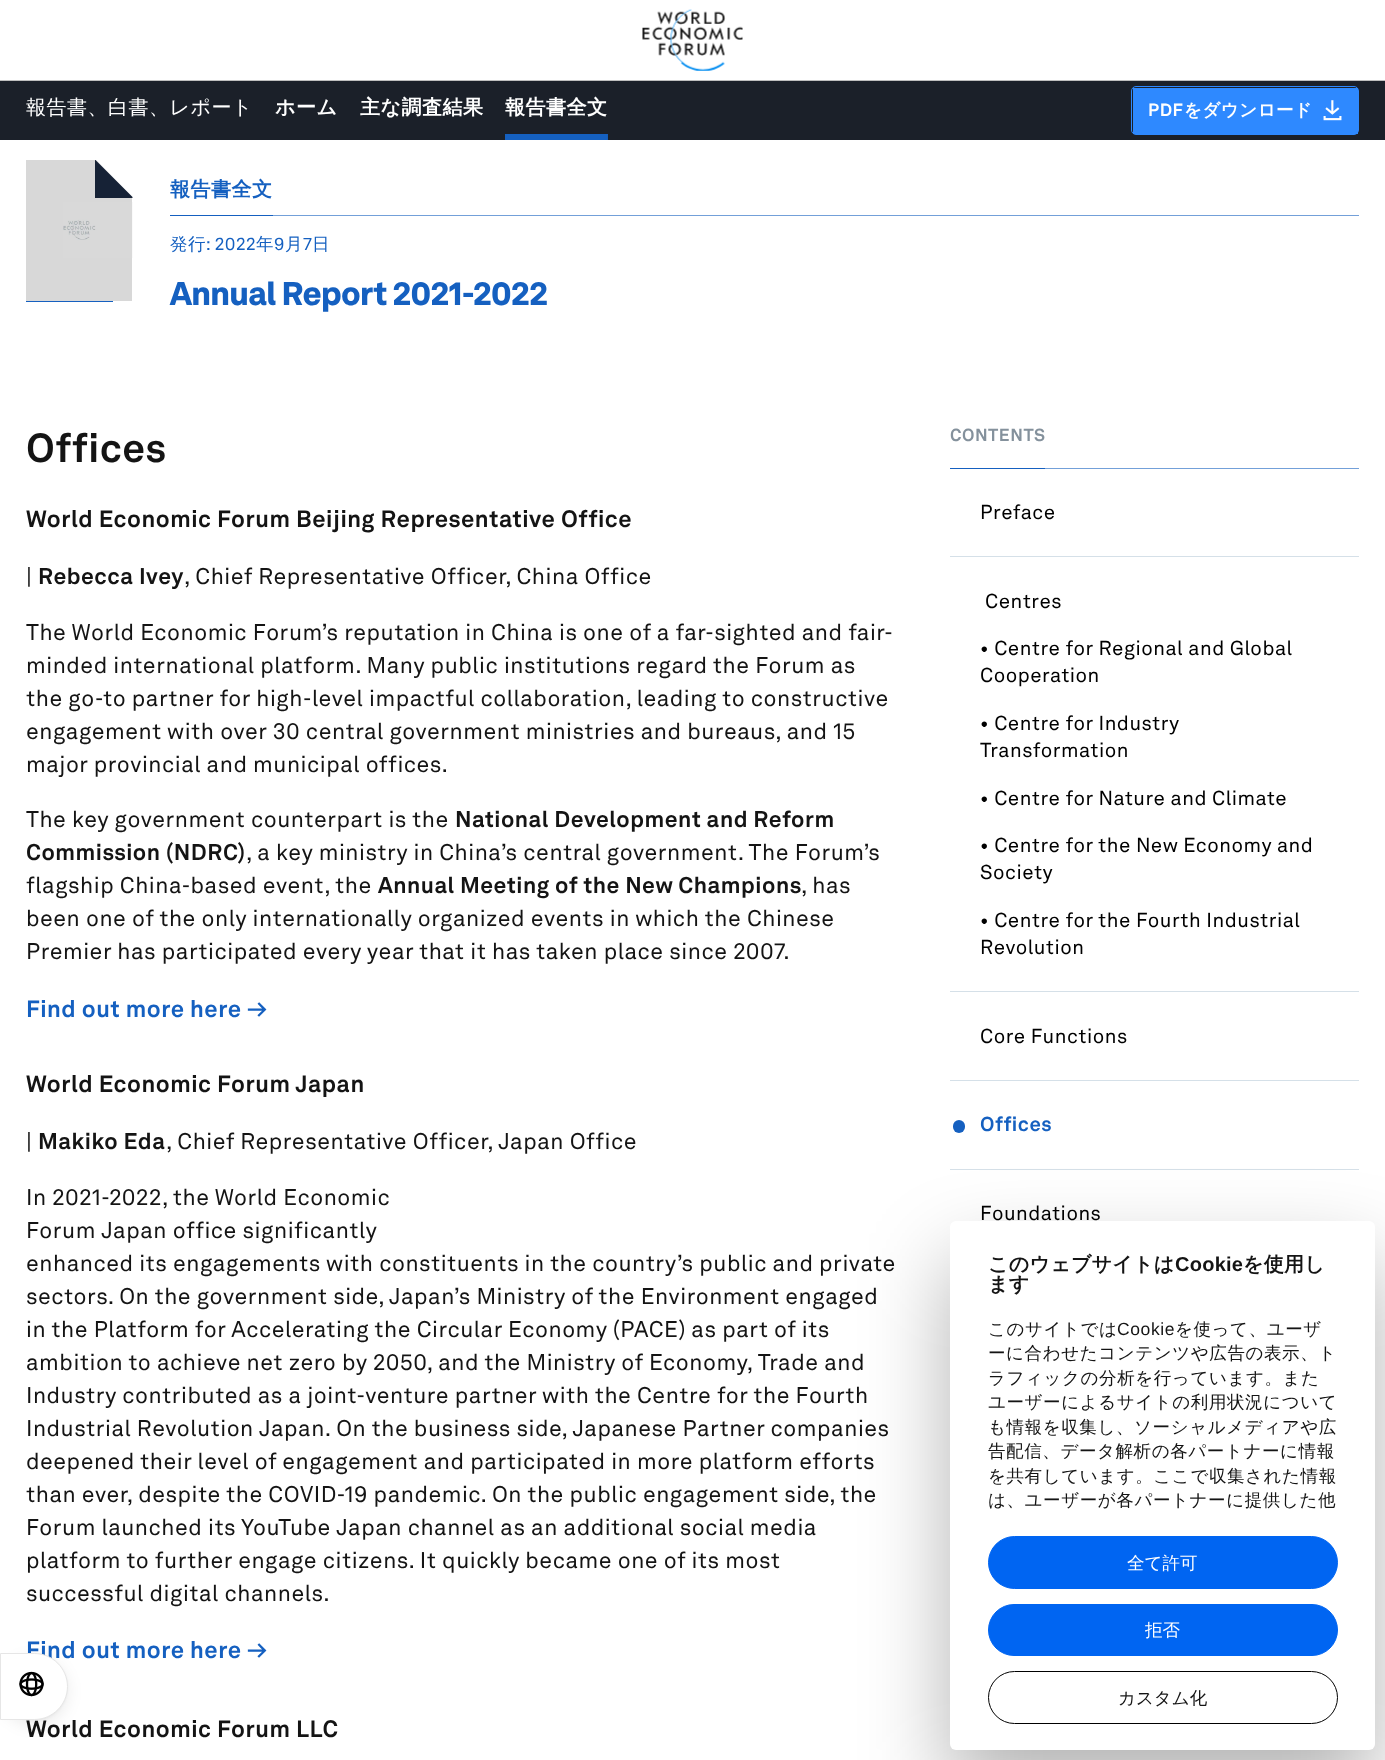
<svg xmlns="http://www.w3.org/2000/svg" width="1385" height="1760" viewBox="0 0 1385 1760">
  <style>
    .t1 { font: 500 20px WenQuanYi Zen Hei; letter-spacing: 0.5px; fill: #fff; }
    .t2 { font: bold 20px WenQuanYi Zen Hei; letter-spacing: 0.5px; fill: #fff; }
    .t3 { font: bold 17.5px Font; letter-spacing: 0.5px; fill: #fff; }
    .t4 { font: bold 17.5px WenQuanYi Zen Hei; letter-spacing: 0.5px; fill: #fff; }
    .t5 { font: bold 20px WenQuanYi Zen Hei; letter-spacing: 0.5px; fill: #1560c0; }
    .t6 { font: 500 17.5px WenQuanYi Zen Hei; letter-spacing: 0.5px; fill: #1560c0; }
    .t7 { font: 17.5px Font; letter-spacing: 0.5px; fill: #1560c0; }
    .t8 { font: 900 32.5px Font; letter-spacing: -0.65px; fill: #1560c0; }
    .t9 { font: bold 40px Font; letter-spacing: 0.5px; fill: #141414; }
    .t10 { font: bold 23.4px Font; letter-spacing: 0.5px; fill: #141414; }
    .t11 { font: 22.5px Font; letter-spacing: 0.5px; fill: #141414; }
    .t12 { font: bold 22.5px Font; letter-spacing: 0.5px; fill: #141414; }
    .t13 { font: bold 23.4px Font; letter-spacing: 0.5px; fill: #1560c0; }
    .t14 { font: bold 17.25px Font; letter-spacing: 0.5px; fill: #84919c; }
    .t15 { font: 20px Font; letter-spacing: 0.5px; fill: #000; }
    .t16 { font: bold 20px Font; letter-spacing: 0.5px; fill: #1560c0; }
    .t17 { font: bold 20px WenQuanYi Zen Hei; letter-spacing: 0.25px; fill: #141414; }
    .t18 { font: bold 20px Liberation Sans; letter-spacing: 0.25px; fill: #141414; }
    .t19 { font: 500 17.5px WenQuanYi Zen Hei; letter-spacing: 0.6px; fill: #141414; }
    .t20 { font: 17.5px Liberation Sans; letter-spacing: 0.6px; fill: #141414; }
    .t21 { font: 500 17.5px WenQuanYi Zen Hei; fill: #fff; }
    .t22 { font: 500 17.5px WenQuanYi Zen Hei; fill: #141414; }
  </style>
  <defs>
    <linearGradient id="g1" gradientUnits="userSpaceOnUse" x1="606" y1="111" x2="633" y2="111"><stop offset="0" stop-color="#1b2029" stop-opacity="0"/><stop offset="0.99" stop-color="#1b2029"/><stop offset="1" stop-color="#1b2029"/></linearGradient>
    <linearGradient id="g2" gradientUnits="userSpaceOnUse" x1="1155" y1="1536" x2="1155" y2="1508"><stop offset="0" stop-color="#fff"/><stop offset="0.5" stop-color="#fff" stop-opacity="0.8"/><stop offset="1" stop-color="#fff" stop-opacity="0"/></linearGradient>
  </defs>
  <rect width="100%" height="100%" fill="#fff"/>
  <rect x="0" y="80" width="1385" height="1" fill="#bfbfbf"/>
  <image x="642" y="9" width="101" height="62" href="images/1.png"/>
  <rect x="0" y="81" width="1385" height="59" fill="#1b2029"/>
  <text x="26" y="114" class="t1">報告書、白書、レポート</text>
  <text x="275" y="114" class="t2">ホーム</text>
  <text x="360" y="114" class="t2">主な調査結果</text>
  <rect x="505" y="134" width="103" height="6" fill="#1560c0"/>
  <text x="505" y="114" class="t2">報告書全文</text>
  <rect x="607" y="134" width="1" height="6" fill="url(#g1)"/>
  <rect x="1131.5" y="86.5" width="227" height="48" rx="4.5" fill="none" stroke="#2e89ff"/>
  <rect x="1133" y="88" width="225" height="46" fill="#2e89ff"/>
  <text x="1148" y="116" class="t3">PDF</text>
  <text x="1184" y="116" class="t4">をダウンロード</text>
  <image x="1323" y="100" width="19" height="21" href="images/2.png"/>
  <path d="M26 301V160H96L132 197V301Z" fill="#d8d8d8"/>
  <image x="63" y="202" width="70" height="56" href="images/3.png"/>
  <path d="M95 160H95.5L132.5 197V198H95Z" fill="#162236"/>
  <rect x="26" y="301" width="87" height="1" fill="#1560c0"/>
  <rect x="273" y="215" width="1086" height="1" fill="#73a0d9"/>
  <rect x="170" y="215" width="103" height="1" fill="#1560c0"/>
  <text x="170" y="196" class="t5">報告書全文</text>
  <text x="170" y="250" class="t6">発行</text>
  <text x="206" y="250" class="t7">: 2022</text>
  <text x="256" y="250" class="t6">年</text>
  <text x="274" y="250" class="t7">9</text>
  <text x="285" y="250" class="t6">月</text>
  <text x="303" y="250" class="t7">7</text>
  <text x="312" y="250" class="t6">日</text>
  <text x="170" y="305" class="t8">Annual Report 2021-2022</text>
  <text x="26" y="462" class="t9">Offices</text>
  <text x="26" y="527" class="t10">World Economic Forum Beijing Representative Office</text>
  <text x="26" y="584" class="t11">|</text>
  <text x="38" y="584" class="t12">Rebecca Ivey</text>
  <text x="184" y="584" class="t11">, Chief Representative Officer, China Office</text>
  <text x="26" y="640" class="t11">The World Economic Forum’s reputation in China is one of a far-sighted and fair-</text>
  <text x="26" y="673" class="t11">minded international platform. Many public institutions regard the Forum as</text>
  <text x="26" y="706" class="t11">the go-to partner for high-level impactful collaboration, leading to constructive</text>
  <text x="26" y="739" class="t11">engagement with over 30 central government ministries and bureaus, and 15</text>
  <text x="26" y="772" class="t11">major provincial and municipal offices.</text>
  <text x="26" y="827" class="t11">The key government counterpart is the</text>
  <text x="455" y="827" class="t12">National Development and Reform</text>
  <text x="26" y="860" class="t12">Commission (NDRC)</text>
  <text x="246" y="860" class="t11">, a key ministry in China’s central government. The Forum’s</text>
  <text x="26" y="893" class="t11">flagship China-based event, the</text>
  <text x="378" y="893" class="t12">Annual Meeting of the New Champions</text>
  <text x="801" y="893" class="t11">, has</text>
  <text x="26" y="926" class="t11">been one of the only internationally organized events in which the Chinese</text>
  <text x="26" y="959" class="t11">Premier has participated every year that it has taken place since 2007.</text>
  <text x="26" y="1017" class="t13">Find out more here →</text>
  <text x="26" y="1092" class="t10">World Economic Forum Japan</text>
  <text x="26" y="1149" class="t11">|</text>
  <text x="38" y="1149" class="t12">Makiko Eda</text>
  <text x="166" y="1149" class="t11">, Chief Representative Officer, Japan Office</text>
  <text x="26" y="1205" class="t11">In 2021-2022, the World Economic</text>
  <text x="26" y="1238" class="t11">Forum Japan office significantly</text>
  <text x="26" y="1271" class="t11">enhanced its engagements with constituents in the country’s public and private</text>
  <text x="26" y="1304" class="t11">sectors. On the government side, Japan’s Ministry of the Environment engaged</text>
  <text x="26" y="1337" class="t11">in the Platform for Accelerating the Circular Economy (PACE) as part of its</text>
  <text x="26" y="1370" class="t11">ambition to achieve net zero by 2050, and the Ministry of Economy, Trade and</text>
  <text x="26" y="1403" class="t11">Industry contributed as a joint-venture partner with the Centre for the Fourth</text>
  <text x="26" y="1436" class="t11">Industrial Revolution Japan. On the business side, Japanese Partner companies</text>
  <text x="26" y="1469" class="t11">deepened their level of engagement and participated in more platform efforts</text>
  <text x="26" y="1502" class="t11">than ever, despite the COVID-19 pandemic. On the public engagement side, the</text>
  <text x="26" y="1535" class="t11">Forum launched its YouTube Japan channel as an additional social media</text>
  <text x="26" y="1568" class="t11">platform to further engage citizens. It quickly became one of its most</text>
  <text x="26" y="1601" class="t11">successful digital channels.</text>
  <text x="26" y="1658" class="t13">Find out more here →</text>
  <text x="26" y="1737" class="t10">World Economic Forum LLC</text>
  <rect x="1045" y="468" width="314" height="1" fill="#73a0d9"/>
  <rect x="950" y="468" width="95" height="1" fill="#1560c0"/>
  <text x="950" y="441" class="t14">CONTENTS</text>
  <rect x="950" y="556" width="409" height="1" fill="#d5e0e8"/>
  <text x="980" y="519" class="t15">Preface</text>
  <rect x="950" y="991" width="409" height="1" fill="#d5e0e8"/>
  <text x="985" y="608" class="t15">Centres</text>
  <text x="980" y="655" class="t15">• Centre for Regional and Global</text>
  <text x="980" y="682" class="t15">Cooperation</text>
  <text x="980" y="730" class="t15">• Centre for Industry</text>
  <text x="980" y="757" class="t15">Transformation</text>
  <text x="980" y="805" class="t15">• Centre for Nature and Climate</text>
  <text x="980" y="852" class="t15">• Centre for the New Economy and</text>
  <text x="980" y="879" class="t15">Society</text>
  <text x="980" y="927" class="t15">• Centre for the Fourth Industrial</text>
  <text x="980" y="954" class="t15">Revolution</text>
  <rect x="950" y="1080" width="409" height="1" fill="#d5e0e8"/>
  <text x="980" y="1043" class="t15">Core Functions</text>
  <rect x="950" y="1169" width="409" height="1" fill="#d5e0e8"/>
  <rect x="953" y="1120" width="12" height="13" rx="6" fill="#1560c0"/>
  <text x="980" y="1131" class="t16">Offices</text>
  <text x="980" y="1220" class="t15">Foundations</text>
  <rect x="0" y="1654" width="68" height="67" rx="33.5" fill="#0000000a" filter="blur(1px)"/>
  <rect x="0" y="1658" width="68" height="67" rx="33.5" fill="#00000014" filter="blur(7.5px)"/>
  <path d="M.5 1653.5H34.5C52.5 1653.5 67.5 1668.5 67.5 1686.5C67.5 1704.5 52.5 1719.5 34.5 1719.5H.5Z" fill="#fff" stroke="#e6e6e6"/>
  <image x="19" y="1671" width="25" height="26" href="images/4.png"/>
  <rect x="950" y="1261" width="425" height="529" rx="6" fill="#0000004d" filter="blur(42.5px)"/>
  <rect x="950" y="1221" width="425" height="529" rx="6" fill="#fff"/>
  <text x="988" y="1271" class="t17">このウェブサイトは</text>
  <text x="1175" y="1271" class="t18">Cookie</text>
  <text x="1243" y="1271" class="t17">を使用し</text>
  <text x="988" y="1291" class="t17">ます</text>
  <text x="988" y="1335" class="t19">このサイトでは</text>
  <text x="1117" y="1335" class="t20">Cookie</text>
  <text x="1175" y="1335" class="t19">を使って、ユーザ</text>
  <text x="988" y="1359" class="t19">ーに合わせたコンテンツや広告の表示、ト</text>
  <text x="988" y="1384" class="t19">ラフィックの分析を行っています。また</text>
  <text x="988" y="1408" class="t19">ユーザーによるサイトの利用状況について</text>
  <text x="988" y="1433" class="t19">も情報を収集し、ソーシャルメディアや広</text>
  <text x="988" y="1457" class="t19">告配信、データ解析の各パートナーに情報</text>
  <text x="988" y="1482" class="t19">を共有しています。ここで収集された情報</text>
  <text x="988" y="1506" class="t19">は、ユーザーが各パートナーに提供した他</text>
  <rect x="990" y="1508" width="300" height="1" fill="url(#g2)"/>
  <rect x="988.5" y="1536.5" width="349" height="52" rx="26" fill="#0065f2" stroke="#0065f2"/>
  <text x="1127" y="1569" class="t21">全て許可</text>
  <rect x="988.5" y="1604.5" width="349" height="51" rx="25.5" fill="#0065f2" stroke="#0065f2"/>
  <text x="1145" y="1636" class="t21">拒否</text>
  <rect x="988.5" y="1671.5" width="349" height="52" rx="26" fill="none" stroke="#000"/>
  <text x="1118" y="1704" class="t22">カスタム化</text>
</svg>
